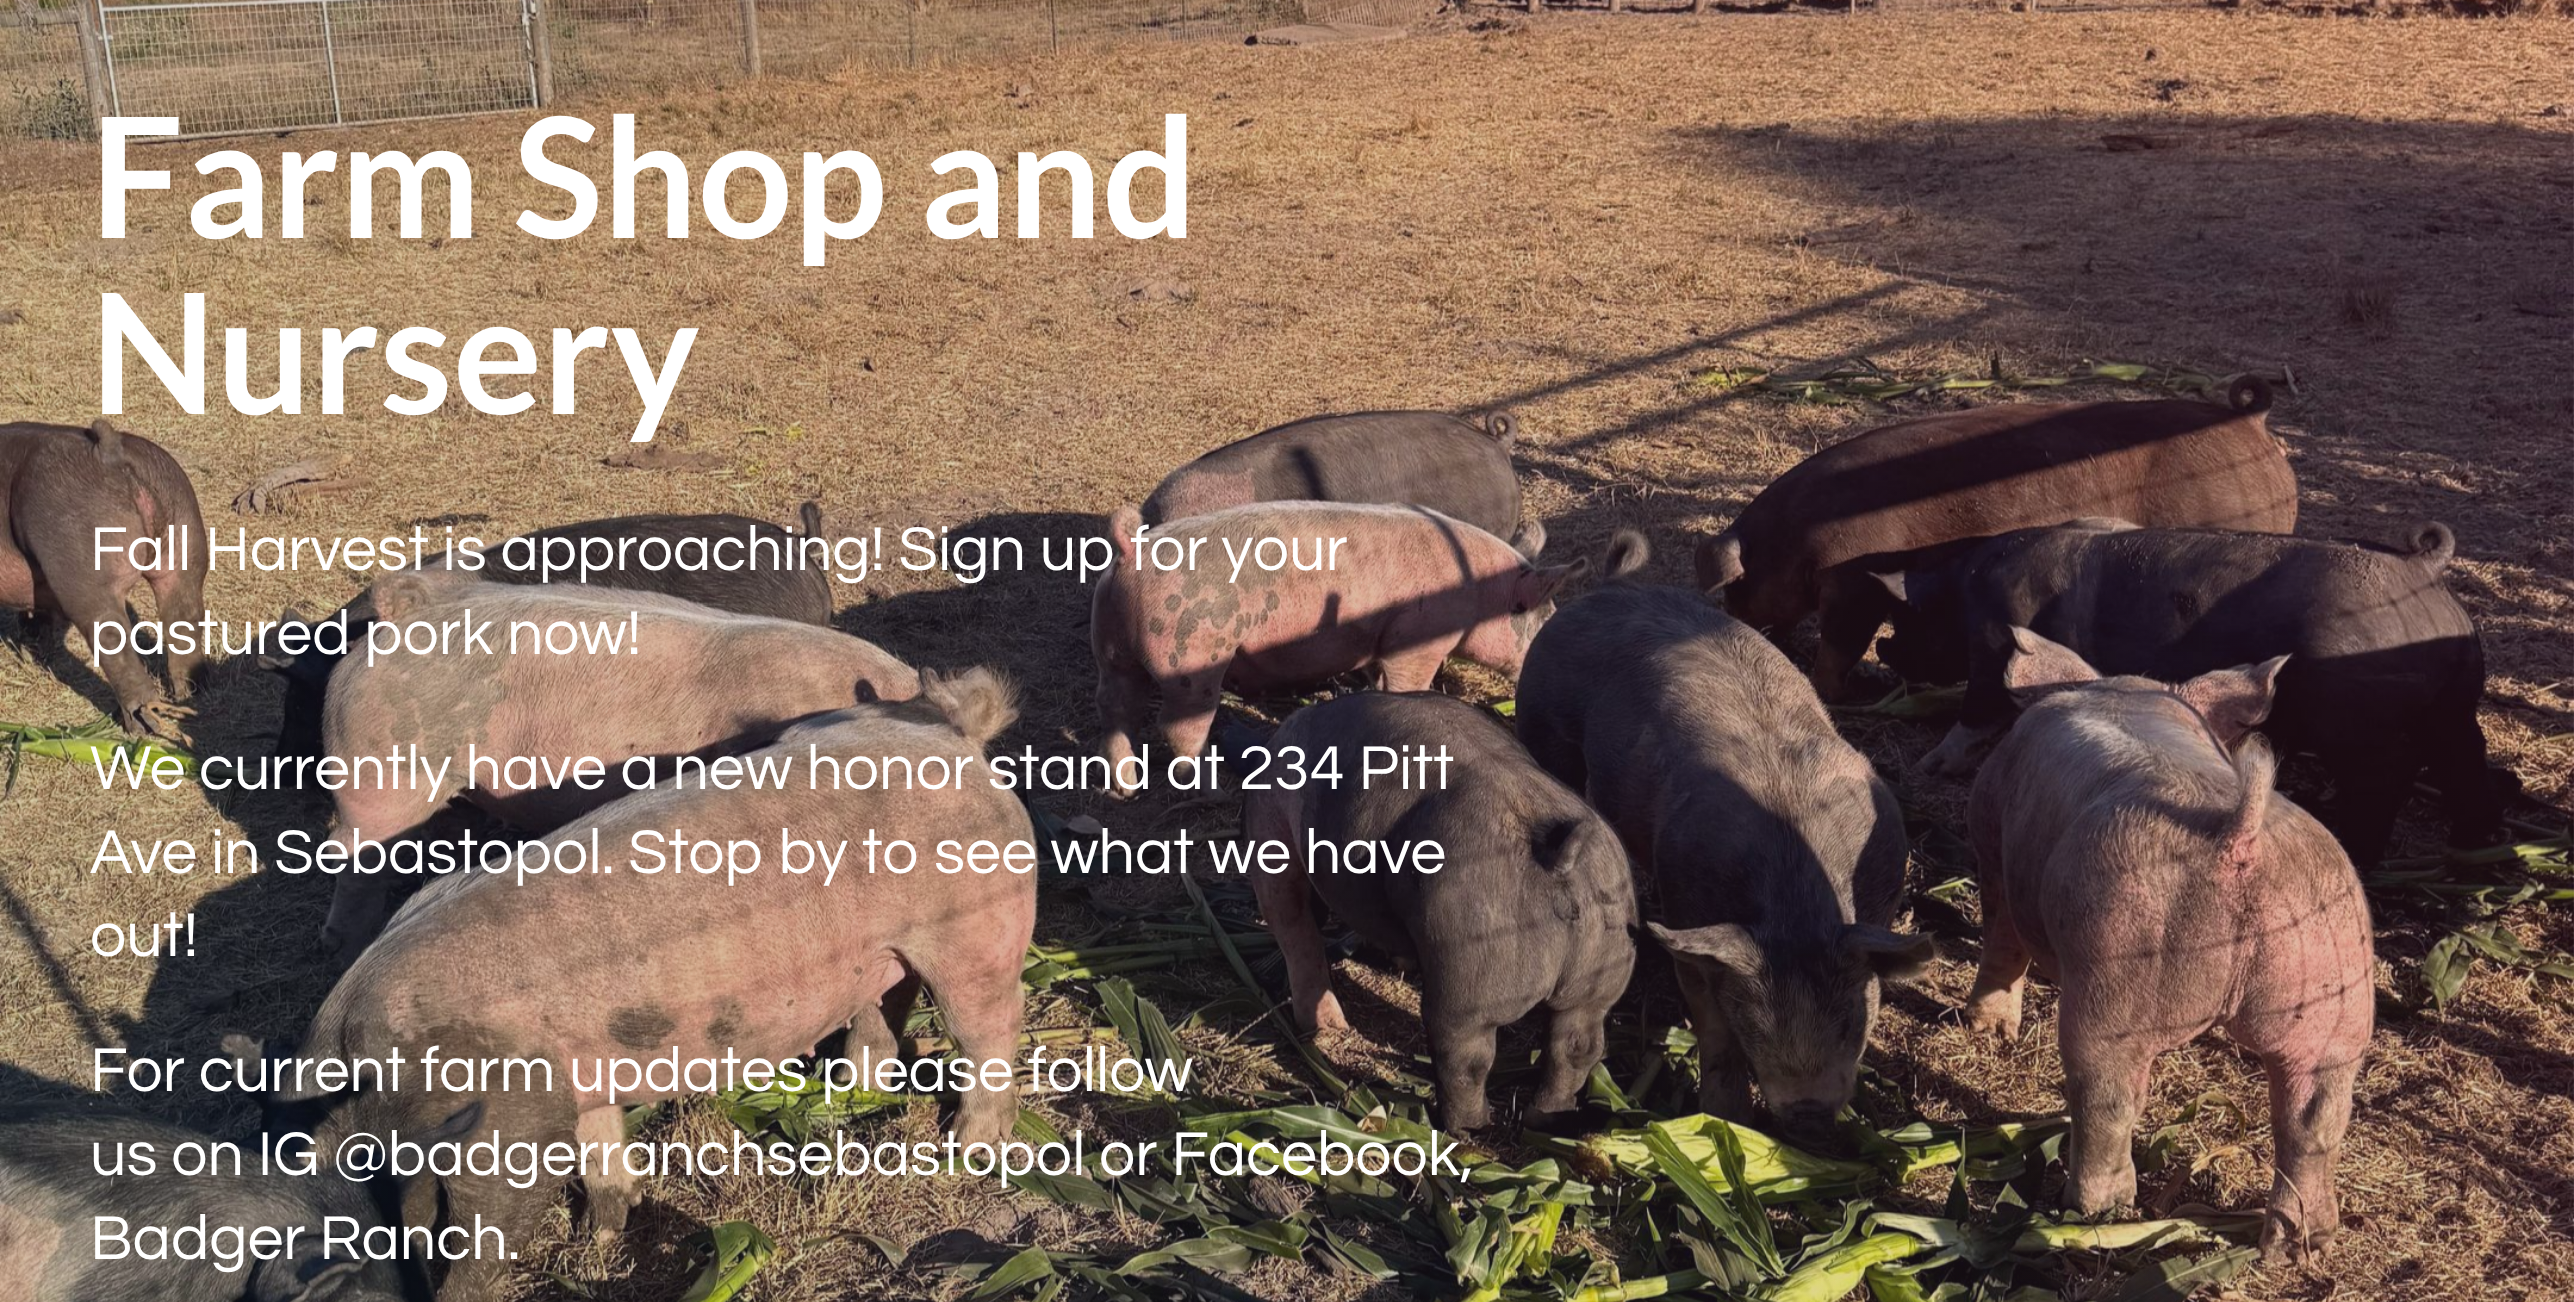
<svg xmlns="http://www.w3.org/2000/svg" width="2574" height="1302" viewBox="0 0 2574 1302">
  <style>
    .t1 { font: bold 167.25px Lato; fill: #fff; }
    .t2 { font: 64.35px Questrial; fill: #fff; }
  </style>
  <defs>
    <linearGradient id="g1" gradientUnits="userSpaceOnUse" x1="-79" y1="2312" x2="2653" y2="-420"><stop offset="0" stop-color="#004961" stop-opacity="0.2"/><stop offset="1" stop-color="#ab2c52" stop-opacity="0.2"/></linearGradient>
  </defs>
  <rect width="100%" height="100%" fill="#fff"/>
  <image x="0" y="0" width="2574" height="1302" href="images/1.png"/>
  <rect x="0" y="0" width="2574" height="1302" fill="url(#g1)"/>
  <text x="90" y="238" class="t1">Farm Shop and</text>
  <text x="90" y="414" class="t1">Nursery</text>
  <text x="90" y="570" class="t2">Fall Harvest is approaching! Sign up for your</text>
  <text x="90" y="654" class="t2">pastured pork now!</text>
  <text x="90" y="789" class="t2">We currently have a new honor stand at 234 Pitt</text>
  <text x="90" y="873" class="t2">Ave in Sebastopol. Stop by to see what we have</text>
  <text x="90" y="956" class="t2">out!</text>
  <text x="90" y="1091" class="t2">For current farm updates please follow</text>
  <text x="90" y="1175" class="t2">us on IG @badgerranchsebastopol or Facebook,</text>
  <text x="90" y="1259" class="t2">Badger Ranch.</text>
</svg>
